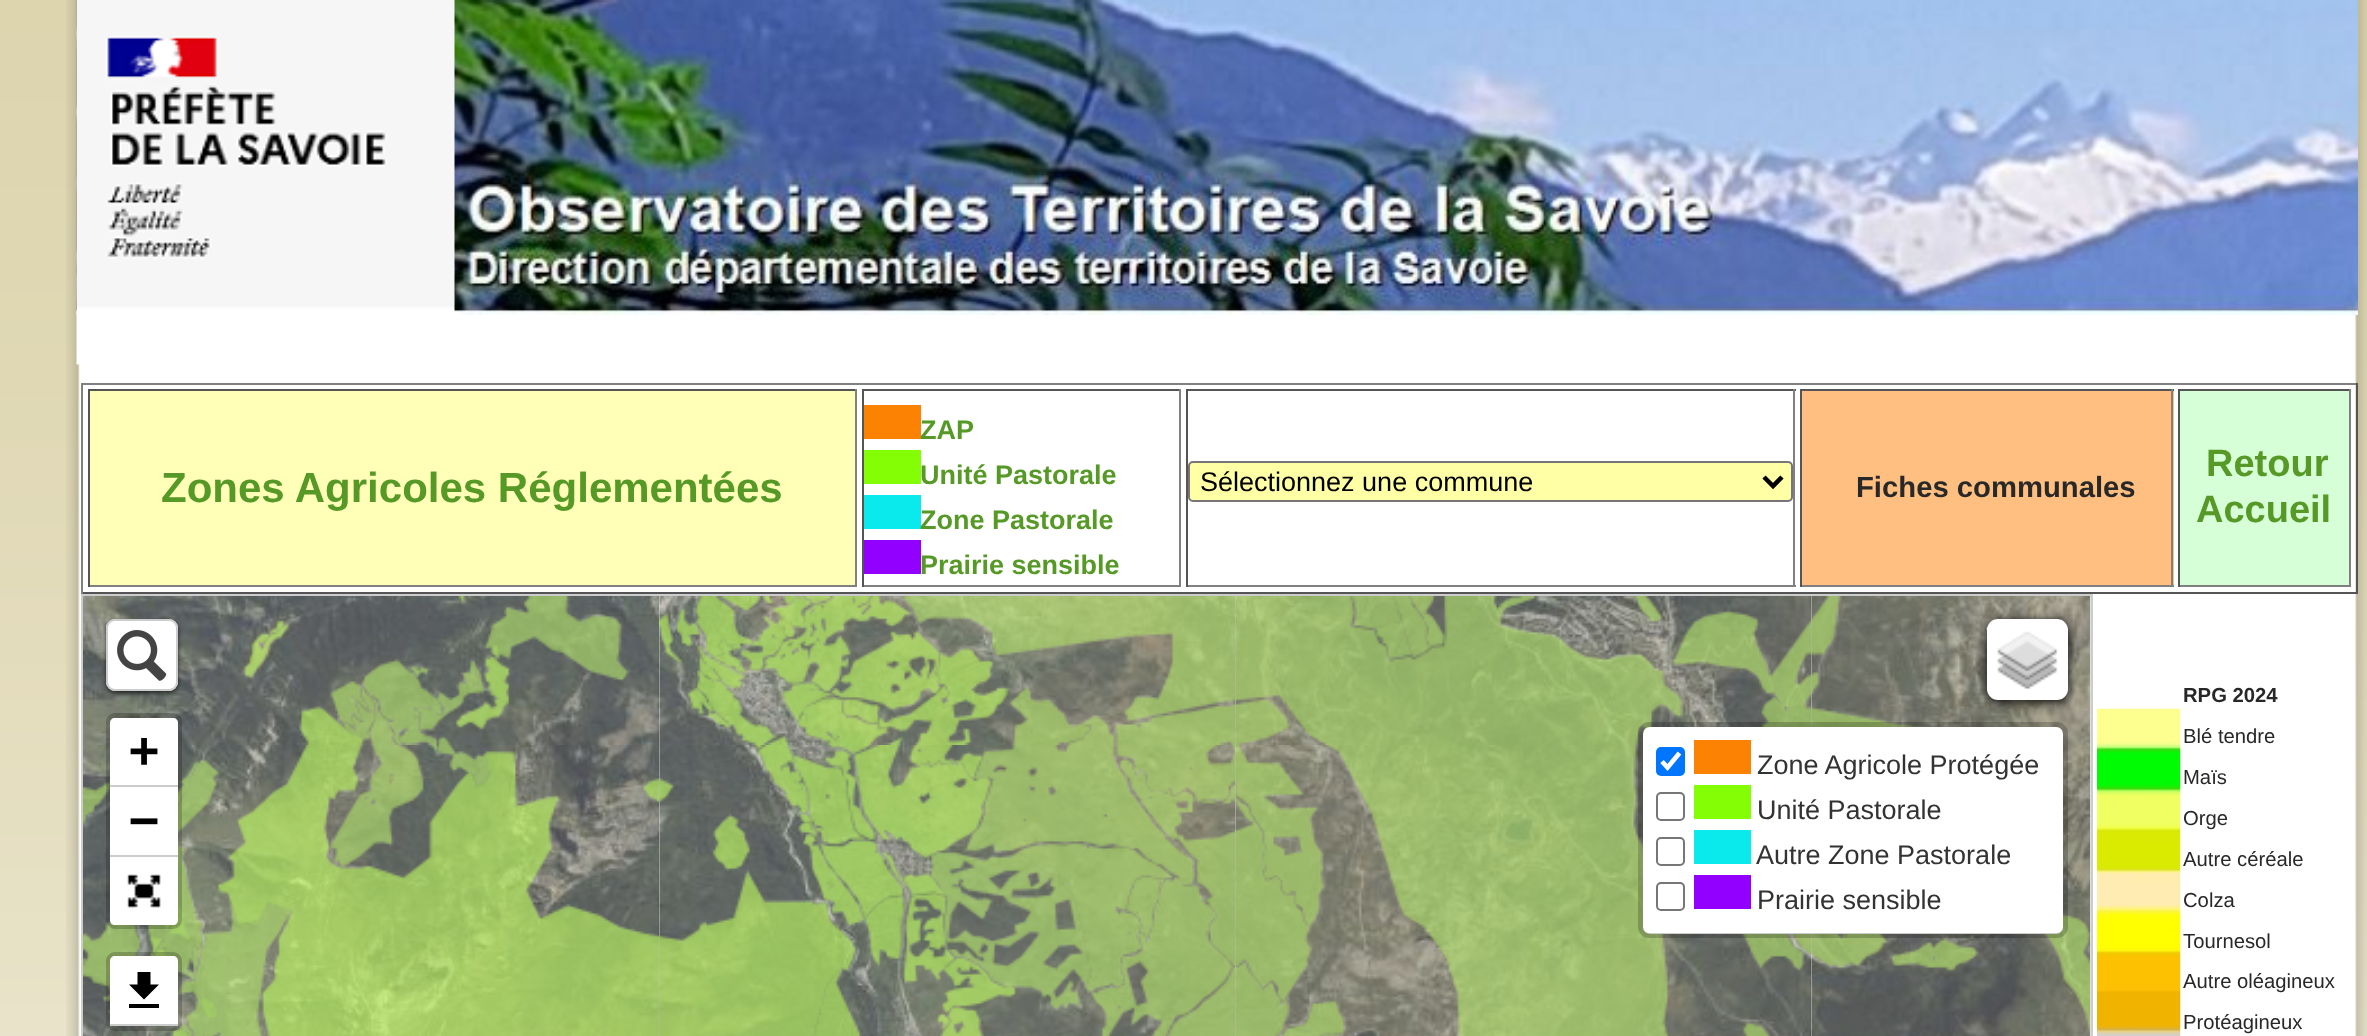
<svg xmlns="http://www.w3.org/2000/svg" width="2367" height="1036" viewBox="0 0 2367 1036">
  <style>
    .t1 { font: bold 42px Liberation Sans; fill: #569926; }
    .t2 { font: bold 27px Liberation Sans; fill: #569926; }
    .t3 { font: 27px Liberation Sans; fill: #000; }
    .t4 { font: bold 29.25px Liberation Sans; fill: #282828; }
    .t5 { font: bold 38px Liberation Sans; fill: #569926; }
    .t6 { font: bold 50px DejaVu Sans Mono; fill: #000; }
    .t7 { font: 27px Liberation Sans; fill: #333; }
    .t8 { font: bold 20.25px Liberation Sans; fill: #282828; }
    .t9 { font: 20.25px Liberation Sans; fill: #282828; }
  </style>
  <rect width="100%" height="100%" fill="#fff"/>
  <image x="0" y="0" width="2367" height="1036" href="images/1.png"/>
  <image x="66" y="0" width="2301" height="1036" href="images/2.png"/>
  <image x="76" y="0" width="2282" height="315" href="images/3.png"/>
  <image x="76" y="0" width="379" height="365" href="images/4.png"/>
  <rect x="81" y="383" width="2277" height="2" fill="#808080"/>
  <rect x="2356" y="383" width="2" height="211" fill="#555"/>
  <rect x="81" y="592" width="2277" height="2" fill="#555"/>
  <rect x="81" y="383" width="2" height="211" fill="#808080"/>
  <rect x="90" y="391" width="765" height="194" fill="#ffffb7"/>
  <rect x="88" y="389" width="769" height="2" fill="#555"/>
  <rect x="855" y="389" width="2" height="198" fill="#808080"/>
  <rect x="88" y="585" width="769" height="2" fill="#808080"/>
  <rect x="88" y="389" width="2" height="198" fill="#555"/>
  <text x="161" y="502" class="t1">Zones Agricoles Réglementées</text>
  <rect x="862" y="389" width="319" height="2" fill="#555"/>
  <rect x="1179" y="389" width="2" height="198" fill="#808080"/>
  <rect x="862" y="585" width="319" height="2" fill="#808080"/>
  <rect x="862" y="389" width="2" height="198" fill="#555"/>
  <rect x="864" y="405" width="57" height="34" fill="#fc8204"/>
  <text x="920" y="439" class="t2">ZAP</text>
  <rect x="864" y="450" width="57" height="34" fill="#84fe04"/>
  <text x="920" y="484" class="t2">Unité Pastorale</text>
  <rect x="864" y="495" width="57" height="34" fill="#0aeaed"/>
  <text x="920" y="529" class="t2">Zone Pastorale</text>
  <rect x="864" y="540" width="57" height="34" fill="#9200ff"/>
  <text x="920" y="574" class="t2">Prairie sensible</text>
  <rect x="1186" y="389" width="610" height="2" fill="#555"/>
  <rect x="1793" y="389" width="2" height="198" fill="#808080"/>
  <rect x="1186" y="585" width="610" height="2" fill="#808080"/>
  <rect x="1186" y="389" width="2" height="198" fill="#555"/>
  <rect x="1189" y="462" width="603" height="39" rx="4" fill="#ffffa5" stroke="#767676" stroke-width="2"/>
  <path d="M1764 477L1773 486L1782 477" fill="none" stroke="#000" stroke-width="4.5"/>
  <text x="1200" y="491" class="t3">Sélectionnez une commune</text>
  <rect x="1802" y="391" width="372" height="194" fill="#ffbf80"/>
  <rect x="1800" y="389" width="374" height="2" fill="#555"/>
  <rect x="2171" y="389" width="2" height="198" fill="#808080"/>
  <rect x="1800" y="585" width="374" height="2" fill="#808080"/>
  <rect x="1800" y="389" width="2" height="198" fill="#555"/>
  <text x="1856" y="497" class="t4">Fiches communales</text>
  <rect x="2180" y="391" width="169" height="194" fill="#d7ffd7"/>
  <rect x="2178" y="389" width="173" height="2" fill="#555"/>
  <rect x="2349" y="389" width="2" height="198" fill="#808080"/>
  <rect x="2178" y="585" width="173" height="2" fill="#808080"/>
  <rect x="2178" y="389" width="2" height="198" fill="#555"/>
  <text x="2206" y="476" class="t5">Retour</text>
  <text x="2196" y="522" class="t5">Accueil</text>
  <rect x="82" y="595" width="2010" height="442" fill="#ddd" stroke="#ccc" stroke-width="2"/>
  <image x="658" y="596" width="577" height="149" href="images/6.png"/>
  <image x="83" y="596" width="576" height="149" href="images/5.png"/>
  <image x="1234" y="596" width="577" height="149" href="images/7.png"/>
  <image x="1810" y="596" width="280" height="149" href="images/8.png"/>
  <image x="658" y="745" width="577" height="291" href="images/10.png"/>
  <image x="83" y="745" width="576" height="291" href="images/9.png"/>
  <image x="1234" y="745" width="577" height="291" href="images/11.png"/>
  <image x="1810" y="745" width="280" height="291" href="images/12.png"/>
  <image x="658" y="596" width="577" height="149" href="images/14.png"/>
  <image x="242" y="596" width="417" height="149" href="images/13.png"/>
  <image x="1235" y="596" width="576" height="149" href="images/15.png"/>
  <image x="1810" y="596" width="119" height="131" href="images/16.png"/>
  <image x="658" y="745" width="577" height="291" href="images/18.png"/>
  <image x="83" y="745" width="576" height="291" href="images/17.png"/>
  <image x="1234" y="745" width="577" height="291" href="images/19.png"/>
  <image x="1810" y="913" width="280" height="120" href="images/20.png"/>
  <rect x="106" y="621" width="72" height="72" rx="9" fill="#000000a6" filter="blur(2px)"/>
  <rect x="106" y="619" width="72" height="72" rx="9" fill="#fff"/>
  <image x="117" y="630" width="50" height="51" href="images/21.png"/>
  <rect x="107" y="620" width="70" height="70" rx="8" fill="none" stroke="#ccc" stroke-width="2"/>
  <rect x="108.5" y="715.5" width="71" height="211" rx="6.5" fill="none" stroke="#00000033" stroke-width="5"/>
  <path d="M115 718H173C176 718 178 720 178 723V788H110V723C110 720 112 718 115 718Z" fill="#fff"/>
  <rect x="110" y="785" width="68" height="2" fill="#ccc"/>
  <text x="129" y="767" class="t6">+</text>
  <rect x="110" y="788" width="68" height="67" fill="#fff"/>
  <rect x="110" y="855" width="68" height="2" fill="#ccc"/>
  <text x="129" y="837" class="t6">−</text>
  <path d="M110 857H178V920C178 923 176 925 173 925H115C112 925 110 923 110 920Z" fill="#fff"/>
  <image x="127" y="874" width="34" height="34" href="images/22.png"/>
  <rect x="108.5" y="954.5" width="71" height="74" rx="6.5" fill="none" stroke="#00000033" stroke-width="5"/>
  <path d="M115 956H173C176 956 178 958 178 961V1026H110V961C110 958 112 956 115 956Z" fill="#fff"/>
  <path d="M159 984.5H150.5V972H137.5V984.5H129L144 999.5ZM129 1004V1008H159V1004Z" fill="#000"/>
  <rect x="110" y="1024" width="68" height="2" fill="#ccc"/>
  <rect x="1987" y="621" width="81" height="81" rx="11" fill="#000" filter="blur(5.5px)"/>
  <rect x="1987" y="619" width="81" height="81" rx="11" fill="#fff"/>
  <image x="1986" y="627" width="72" height="63" href="images/23.png"/>
  <rect x="1643" y="727" width="420" height="207" rx="7" fill="#fff"/>
  <rect x="1640.5" y="724.5" width="425" height="211" rx="8.5" fill="none" stroke="#00000033" stroke-width="5"/>
  <rect x="1656" y="747" width="29" height="29" rx="5" fill="#0075ff"/>
  <path d="M1662 761.5L1667.5 767.5L1679.5 753" fill="none" stroke="#fff" stroke-width="4.7"/>
  <text x="1757" y="774" class="t7">Zone Agricole Protégée</text>
  <rect x="1694" y="740" width="57" height="34" fill="#fc8204"/>
  <rect x="1657" y="793" width="27" height="27" rx="4" fill="none" stroke="#767676" stroke-width="2"/>
  <text x="1757" y="819" class="t7">Unité Pastorale</text>
  <rect x="1694" y="785" width="57" height="34" fill="#84fe04"/>
  <rect x="1657" y="838" width="27" height="27" rx="4" fill="none" stroke="#767676" stroke-width="2"/>
  <text x="1756" y="864" class="t7">Autre Zone Pastorale</text>
  <rect x="1694" y="830" width="57" height="34" fill="#0aeaed"/>
  <rect x="1657" y="883" width="27" height="27" rx="4" fill="none" stroke="#767676" stroke-width="2"/>
  <text x="1757" y="909" class="t7">Prairie sensible</text>
  <rect x="1694" y="875" width="57" height="34" fill="#9200ff"/>
  <image x="2097" y="708" width="84" height="328" href="images/24.png"/>
  <text x="2183" y="702" class="t8">RPG 2024</text>
  <text x="2183" y="743" class="t9">Blé tendre</text>
  <text x="2183" y="784" class="t9">Maïs</text>
  <text x="2183" y="825" class="t9">Orge</text>
  <text x="2183" y="866" class="t9">Autre céréale</text>
  <text x="2183" y="907" class="t9">Colza</text>
  <text x="2183" y="948" class="t9">Tournesol</text>
  <text x="2183" y="988" class="t9">Autre oléagineux</text>
  <text x="2183" y="1029" class="t9">Protéagineux</text>
</svg>
